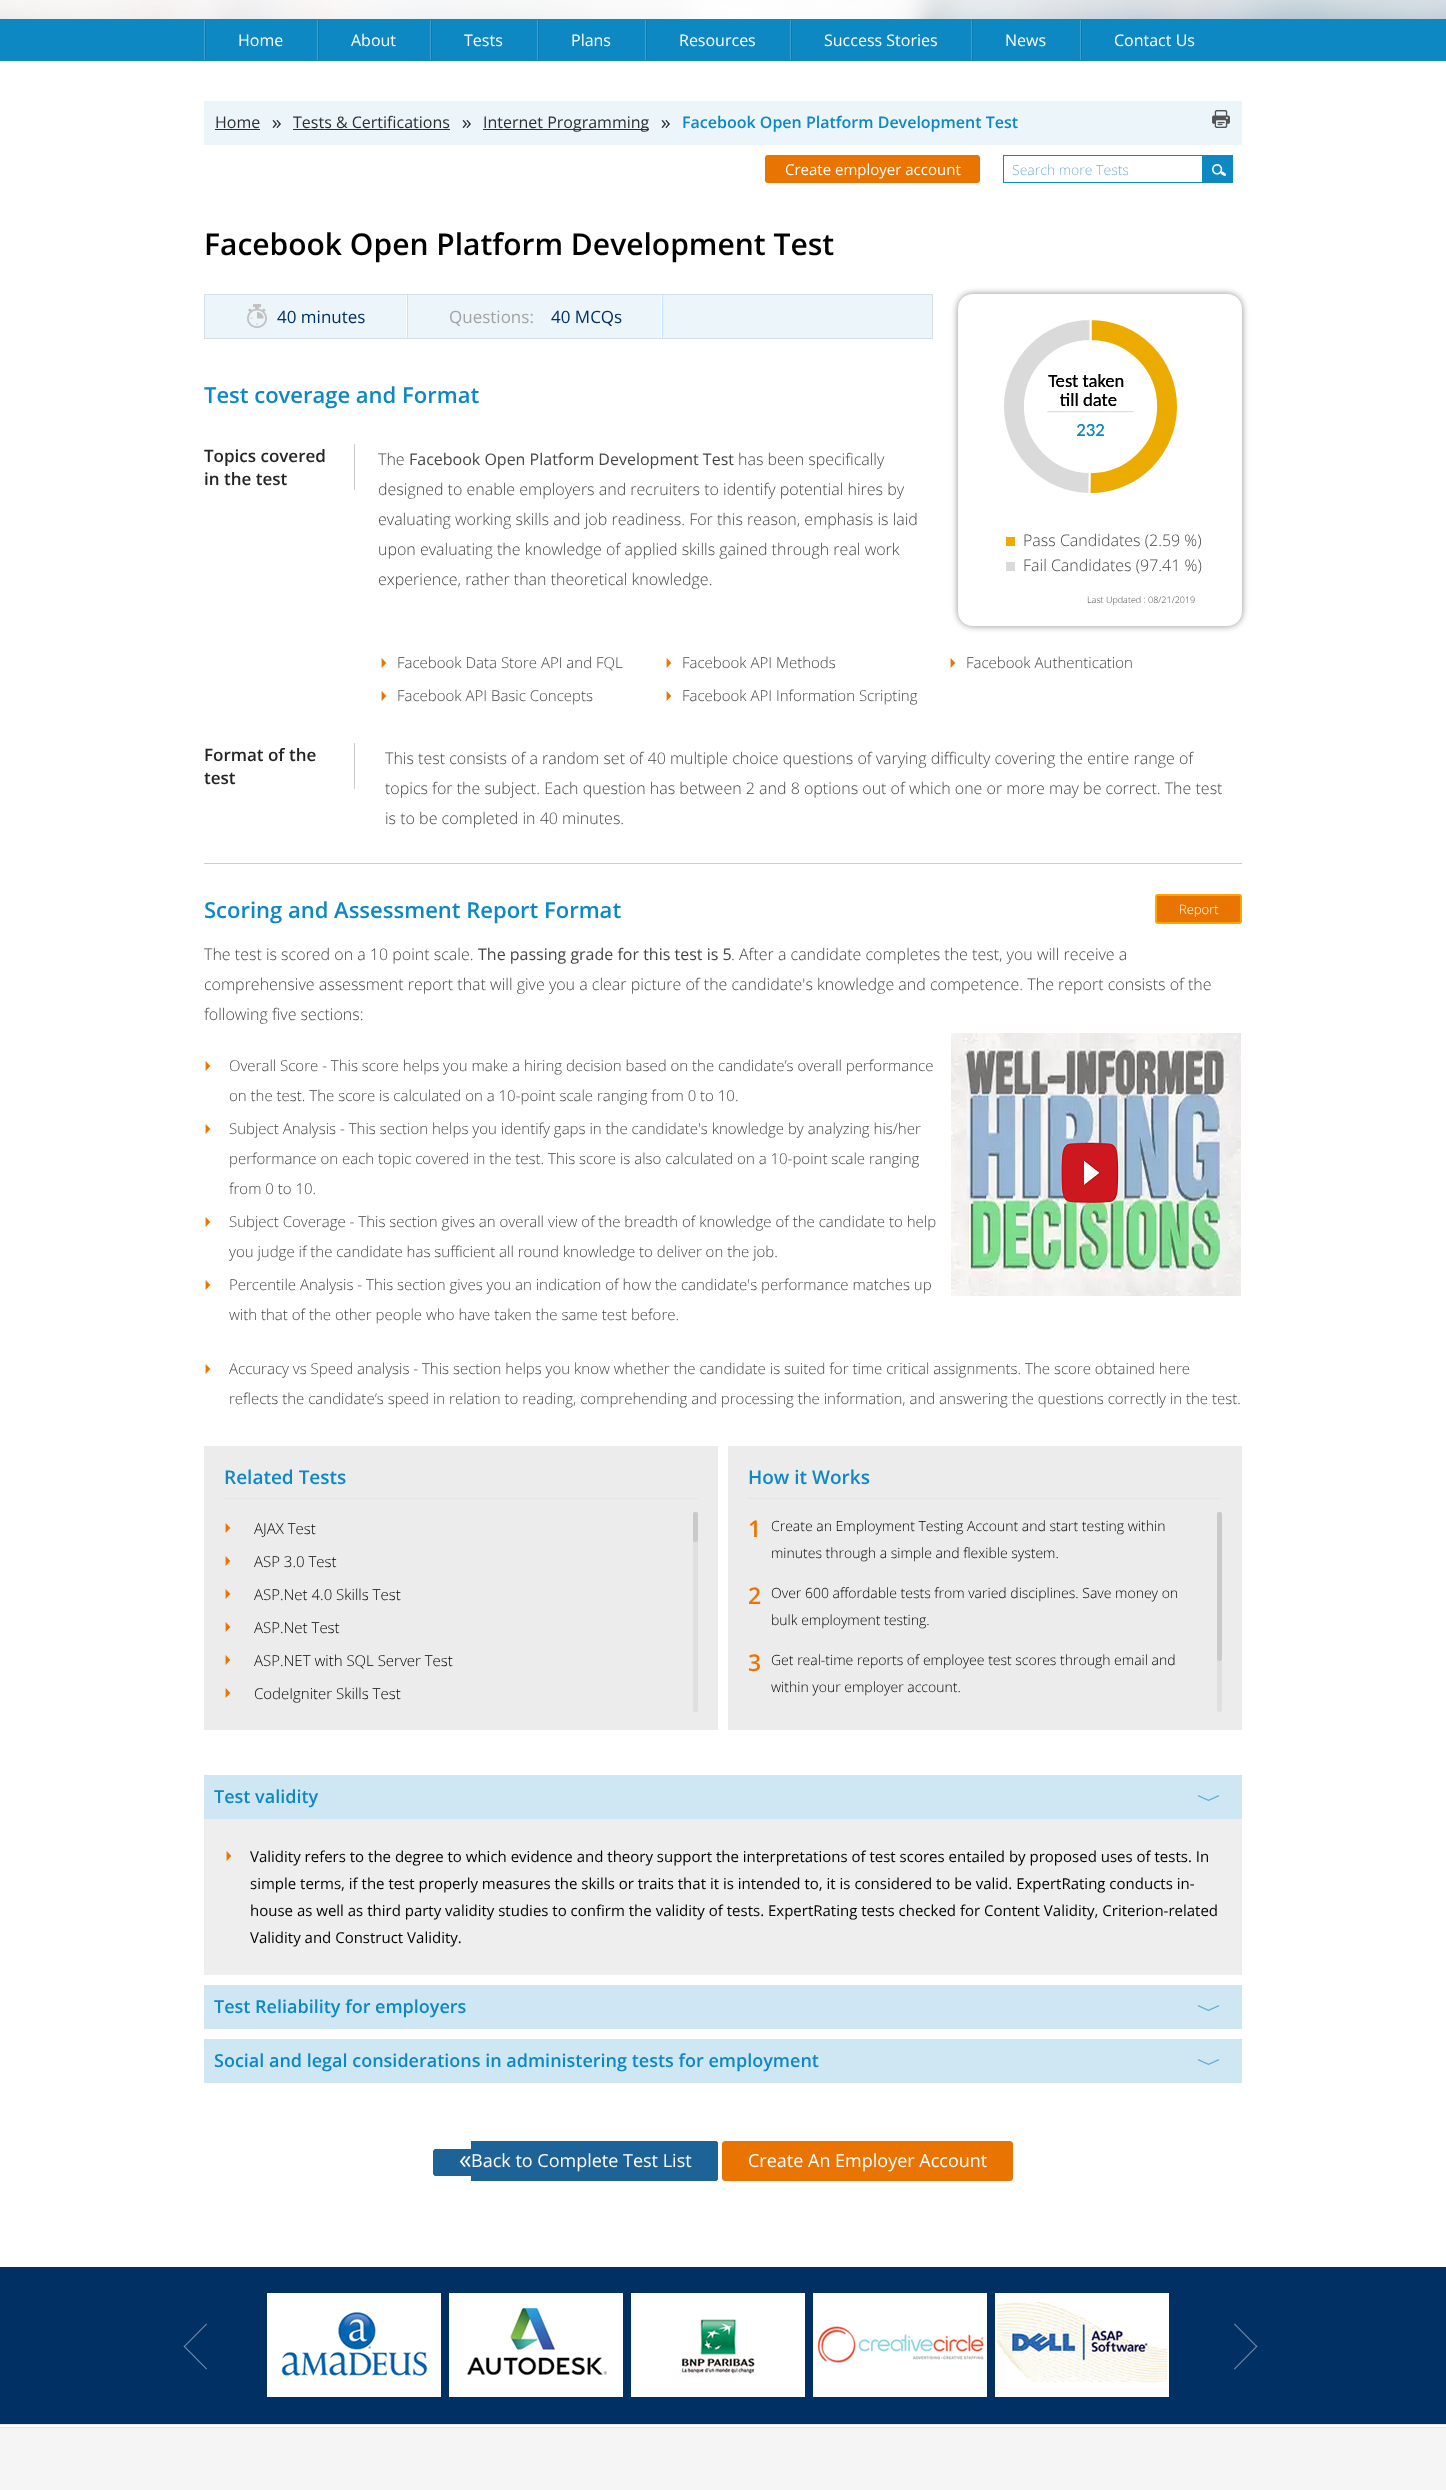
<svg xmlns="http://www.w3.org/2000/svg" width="1446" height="2490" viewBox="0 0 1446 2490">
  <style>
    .t1 { font: 16px Open Sans; fill: #fff; }
    .t2 { font: 16px Open Sans; fill: #2f2f2f; }
    .t3 { font: 600 16px Open Sans; fill: #0e88c3; }
    .t4 { font: 15px Open Sans; fill: #fff; }
    .t5 { font: 300 14px Open Sans; fill: #78b1d6; }
    .t6 { font: 600 30px Open Sans; fill: #000; }
    .t7 { font: 17px Open Sans; fill: #003064; }
    .t8 { font: 17px Open Sans; fill: #a4a3a3; }
    .t9 { font: 600 22px Open Sans; fill: #0e88c3; }
    .t10 { font: 600 17px Open Sans; fill: #242424; }
    .t11 { font: 300 16px Open Sans; fill: #464646; }
    .t12 { font: 16px Open Sans; fill: #464646; }
    .t13 { font: 300 15px Open Sans; fill: #464646; }
    .t14 { font: 300 9px Open Sans; fill: #464646; }
    .t15 { font: 300 13px Open Sans; fill: #fff; }
    .t16 { font: 600 19px Open Sans; fill: #0e88c3; }
    .t17 { font: 300 15px Open Sans; fill: #000; }
    .t18 { font: 600 23px Open Sans; fill: #ea7402; }
    .t19 { font: 300 14px Open Sans; fill: #000; }
    .t20 { font: 600 18px Open Sans; fill: #0e88c3; }
    .t21 { font: 15px Open Sans; fill: #000; }
    .t22 { font: 18px Open Sans; fill: #fff; }
  </style>
  <defs>
    <clipPath id="clip1"><path d="M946 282H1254V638H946ZM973 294H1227C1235.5 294 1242 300.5 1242 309V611C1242 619.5 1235.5 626 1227 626H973C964.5 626 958 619.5 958 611V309C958 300.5 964.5 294 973 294Z" clip-rule="evenodd"/></clipPath>
  </defs>
  <rect width="100%" height="100%" fill="#fff"/>
  <image x="0" y="0" width="1446" height="19" href="images/1.png"/>
  <rect x="0" y="19" width="1446" height="42" fill="#0e88c3"/>
  <image x="204" y="20" width="2" height="40" href="images/2.png"/>
  <text x="238" y="46" class="t1">Home</text>
  <image x="317" y="20" width="2" height="40" href="images/2.png"/>
  <text x="351" y="46" class="t1">About</text>
  <image x="430" y="20" width="2" height="40" href="images/2.png"/>
  <text x="464" y="46" class="t1">Tests</text>
  <image x="537" y="20" width="2" height="40" href="images/2.png"/>
  <text x="571" y="46" class="t1">Plans</text>
  <image x="645" y="20" width="2" height="40" href="images/2.png"/>
  <text x="679" y="46" class="t1">Resources</text>
  <image x="790" y="20" width="2" height="40" href="images/2.png"/>
  <text x="824" y="46" class="t1">Success Stories</text>
  <image x="971" y="20" width="2" height="40" href="images/2.png"/>
  <text x="1005" y="46" class="t1">News</text>
  <image x="1080" y="20" width="2" height="40" href="images/2.png"/>
  <text x="1114" y="46" class="t1">Contact Us</text>
  <rect x="204" y="101" width="1038" height="44" fill="#ecf6fa"/>
  <text x="215" y="128" class="t2">Home</text>
  <rect x="215" y="129" width="45" height="1" fill="#2f2f2f"/>
  <image x="272" y="120" width="9" height="8" href="images/3.png"/>
  <text x="293" y="128" class="t2">Tests &amp; Certifications</text>
  <rect x="293" y="129" width="157" height="1" fill="#2f2f2f"/>
  <image x="462" y="120" width="9" height="8" href="images/3.png"/>
  <rect x="483" y="129" width="166" height="1" fill="#2f2f2f"/>
  <text x="483" y="128" class="t2">Internet Programming</text>
  <image x="661" y="120" width="9" height="8" href="images/3.png"/>
  <text x="682" y="128" class="t3">Facebook Open Platform Development Test</text>
  <image x="1212" y="110" width="18" height="18" href="images/4.png"/>
  <rect x="765" y="155" width="215" height="28" rx="3" fill="#ea7402"/>
  <text x="785" y="175" class="t4">Create employer account</text>
  <rect x="1003.5" y="155.5" width="199" height="27" fill="none" stroke="#0e88c3"/>
  <text x="1012" y="175" class="t5">Search more Tests</text>
  <rect x="1203" y="155" width="30" height="28" fill="#0e88c3"/>
  <image x="1212" y="164" width="14" height="12" href="images/5.png"/>
  <text x="204" y="255" class="t6">Facebook Open Platform Development Test</text>
  <rect x="204.5" y="294.5" width="728" height="44" fill="#ecf6fa" stroke="#d6dee6"/>
  <image x="406" y="295" width="2" height="42" href="images/6.png"/>
  <image x="247" y="304" width="20" height="24" href="images/7.png"/>
  <text x="277" y="323" class="t7">40 minutes</text>
  <image x="661" y="295" width="2" height="43" href="images/8.png"/>
  <text x="449" y="323" class="t8">Questions:</text>
  <text x="551" y="323" class="t7">40 MCQs</text>
  <text x="204" y="403" class="t9">Test coverage and Format</text>
  <rect x="354" y="444" width="1" height="46" fill="#ccc"/>
  <text x="204" y="462" class="t10">Topics covered</text>
  <text x="204" y="485" class="t10">in the test</text>
  <text x="378" y="465" class="t11">The</text>
  <text x="409" y="465" class="t12">Facebook Open Platform Development Test</text>
  <text x="738" y="465" class="t11">has been specifically</text>
  <text x="378" y="495" class="t11">designed to enable employers and recruiters to identify potential hires by</text>
  <text x="378" y="525" class="t11">evaluating working skills and job readiness. For this reason, emphasis is laid</text>
  <text x="378" y="555" class="t11">upon evaluating the knowledge of applied skills gained through real work</text>
  <text x="378" y="585" class="t11">experience, rather than theoretical knowledge.</text>
  <image x="381" y="658" width="6" height="10" href="images/9.png"/>
  <text x="397" y="668" class="t13">Facebook Data Store API and FQL</text>
  <image x="666" y="658" width="6" height="10" href="images/9.png"/>
  <text x="682" y="668" class="t13">Facebook API Methods</text>
  <image x="950" y="658" width="6" height="10" href="images/9.png"/>
  <text x="966" y="668" class="t13">Facebook Authentication</text>
  <image x="381" y="691" width="6" height="10" href="images/9.png"/>
  <text x="397" y="701" class="t13">Facebook API Basic Concepts</text>
  <image x="666" y="691" width="6" height="10" href="images/9.png"/>
  <text x="682" y="701" class="t13">Facebook API Information Scripting</text>
  <g clip-path="url(#clip1)">
    <rect x="958" y="294" width="284" height="332" rx="15" fill="#8c8c8c" filter="blur(3.5px)"/>
  </g>
  <image x="1004" y="320" width="173" height="173" href="images/10.png"/>
  <rect x="1006" y="537" width="9" height="9" fill="#ecab00"/>
  <text x="1023" y="546" class="t11">Pass Candidates (2.59 %)</text>
  <rect x="1006" y="562" width="9" height="9" fill="#dadada"/>
  <text x="1023" y="571" class="t11">Fail Candidates (97.41 %)</text>
  <text x="1087" y="603" class="t14">Last Updated : 08/21/2019</text>
  <rect x="354" y="743" width="1" height="46" fill="#ccc"/>
  <text x="204" y="761" class="t10">Format of the</text>
  <text x="204" y="784" class="t10">test</text>
  <text x="385" y="764" class="t11">This test consists of a random set of 40 multiple choice questions of varying difficulty covering the entire range of</text>
  <text x="385" y="794" class="t11">topics for the subject. Each question has between 2 and 8 options out of which one or more may be correct. The test</text>
  <text x="385" y="824" class="t11">is to be completed in 40 minutes.</text>
  <rect x="204" y="863" width="1038" height="1" fill="#ccc"/>
  <text x="204" y="918" class="t9">Scoring and Assessment Report Format</text>
  <rect x="1156" y="895" width="85" height="28" rx="2" fill="#ea7402" stroke="#ffa500" stroke-width="2"/>
  <text x="1179" y="914" class="t15">Report</text>
  <text x="204" y="960" class="t11">The test is scored on a 10 point scale.</text>
  <text x="478" y="960" class="t12">The passing grade for this test is 5</text>
  <text x="731" y="960" class="t11">. After a candidate completes the test, you will receive a</text>
  <text x="204" y="990" class="t11">comprehensive assessment report that will give you a clear picture of the candidate's knowledge and competence. The report consists of the</text>
  <text x="204" y="1020" class="t11">following five sections:</text>
  <image x="205" y="1061" width="6" height="10" href="images/9.png"/>
  <text x="229" y="1071" class="t13">Overall Score - This score helps you make a hiring decision based on the candidate’s overall performance</text>
  <text x="229" y="1101" class="t13">on the test. The score is calculated on a 10-point scale ranging from 0 to 10.</text>
  <image x="205" y="1124" width="6" height="10" href="images/9.png"/>
  <text x="229" y="1134" class="t13">Subject Analysis - This section helps you identify gaps in the candidate's knowledge by analyzing his/her</text>
  <text x="229" y="1164" class="t13">performance on each topic covered in the test. This score is also calculated on a 10-point scale ranging</text>
  <text x="229" y="1194" class="t13">from 0 to 10.</text>
  <image x="205" y="1217" width="6" height="10" href="images/9.png"/>
  <text x="229" y="1227" class="t13">Subject Coverage - This section gives an overall view of the breadth of knowledge of the candidate to help</text>
  <text x="229" y="1257" class="t13">you judge if the candidate has sufficient all round knowledge to deliver on the job.</text>
  <image x="205" y="1280" width="6" height="10" href="images/9.png"/>
  <text x="229" y="1290" class="t13">Percentile Analysis - This section gives you an indication of how the candidate's performance matches up</text>
  <text x="229" y="1320" class="t13">with that of the other people who have taken the same test before.</text>
  <image x="951" y="1033" width="290" height="263" href="images/11.png"/>
  <image x="205" y="1364" width="6" height="10" href="images/9.png"/>
  <text x="229" y="1374" class="t13">Accuracy vs Speed analysis - This section helps you know whether the candidate is suited for time critical assignments. The score obtained here</text>
  <text x="229" y="1404" class="t13">reflects the candidate’s speed in relation to reading, comprehending and processing the information, and answering the questions correctly in the test.</text>
  <rect x="204" y="1446" width="514" height="284" fill="#ececec"/>
  <rect x="224" y="1498" width="474" height="1" fill="#e5e5e5"/>
  <text x="224" y="1484" class="t16">Related Tests</text>
  <rect x="693" y="1512" width="5" height="200" rx="2" fill="#dfdfdf"/>
  <image x="225" y="1523" width="6" height="10" href="images/12.png"/>
  <text x="254" y="1534" class="t17">AJAX Test</text>
  <image x="225" y="1556" width="6" height="10" href="images/12.png"/>
  <text x="254" y="1567" class="t17">ASP 3.0 Test</text>
  <image x="225" y="1589" width="6" height="10" href="images/12.png"/>
  <text x="254" y="1600" class="t17">ASP.Net 4.0 Skills Test</text>
  <image x="225" y="1622" width="6" height="10" href="images/12.png"/>
  <text x="254" y="1633" class="t17">ASP.Net Test</text>
  <image x="225" y="1655" width="6" height="10" href="images/12.png"/>
  <text x="254" y="1666" class="t17">ASP.NET with SQL Server Test</text>
  <image x="225" y="1688" width="6" height="10" href="images/12.png"/>
  <text x="254" y="1699" class="t17">CodeIgniter Skills Test</text>
  <rect x="693" y="1512" width="5" height="30" rx="2" fill="#c9c9c9"/>
  <rect x="728" y="1446" width="514" height="284" fill="#ececec"/>
  <rect x="748" y="1498" width="474" height="1" fill="#e5e5e5"/>
  <text x="748" y="1484" class="t16">How it Works</text>
  <rect x="1217" y="1512" width="5" height="200" rx="2" fill="#dfdfdf"/>
  <text x="748" y="1537" class="t18">1</text>
  <text x="771" y="1531" class="t19">Create an Employment Testing Account and start testing within</text>
  <text x="771" y="1558" class="t19">minutes through a simple and flexible system.</text>
  <text x="748" y="1604" class="t18">2</text>
  <text x="771" y="1598" class="t19">Over 600 affordable tests from varied disciplines. Save money on</text>
  <text x="771" y="1625" class="t19">bulk employment testing.</text>
  <text x="748" y="1671" class="t18">3</text>
  <text x="771" y="1665" class="t19">Get real-time reports of employee test scores through email and</text>
  <text x="771" y="1692" class="t19">within your employer account.</text>
  <rect x="1217" y="1512" width="5" height="149" rx="2" fill="#c9c9c9"/>
  <rect x="204" y="1775" width="1038" height="44" fill="#cfe7f3"/>
  <text x="214" y="1803" class="t20">Test validity</text>
  <image x="1198" y="1795" width="21" height="6" href="images/13.png"/>
  <rect x="204" y="1819" width="1038" height="156" fill="#eee"/>
  <image x="226" y="1851" width="6" height="10" href="images/14.png"/>
  <text x="250" y="1862" class="t21">Validity refers to the degree to which evidence and theory support the interpretations of test scores entailed by proposed uses of tests. In</text>
  <text x="250" y="1889" class="t21">simple terms, if the test properly measures the skills or traits that it is intended to, it is considered to be valid. ExpertRating conducts in-</text>
  <text x="250" y="1916" class="t21">house as well as third party validity studies to confirm the validity of tests. ExpertRating tests checked for Content Validity, Criterion-related</text>
  <text x="250" y="1943" class="t21">Validity and Construct Validity.</text>
  <rect x="204" y="1985" width="1038" height="44" fill="#cfe7f3"/>
  <text x="214" y="2013" class="t20">Test Reliability for employers</text>
  <image x="1198" y="2005" width="21" height="6" href="images/13.png"/>
  <rect x="204" y="2039" width="1038" height="44" fill="#cfe7f3"/>
  <text x="214" y="2067" class="t20">Social and legal considerations in administering tests for employment</text>
  <image x="1198" y="2059" width="21" height="6" href="images/13.png"/>
  <path d="M436 2149H471V2176H436C434.5 2176 433 2174.5 433 2173V2152C433 2150.5 434.5 2149 436 2149Z" fill="#1d6398"/>
  <path d="M436 2149H471V2176H436C434.5 2176 433 2174.5 433 2173V2152C433 2150.5 434.5 2149 436 2149ZM436 2150H471V2175H436C435 2175 434 2174 434 2173V2152C434 2151 435 2150 436 2150Z" fill="#1d6398" fill-rule="evenodd"/>
  <image x="459" y="2156" width="12" height="11" href="images/15.png"/>
  <path d="M471 2141H715C716.5 2141 718 2142.5 718 2144V2178C718 2179.5 716.5 2181 715 2181H471Z" fill="#1d6398"/>
  <path d="M471 2141H715C717 2141 718 2142 718 2144V2178C718 2180 717 2181 715 2181H471ZM471 2142H715C716 2142 717 2143 717 2144V2178C717 2179 716 2180 715 2180H471Z" fill="#1d6398" fill-rule="evenodd"/>
  <text x="471" y="2167" class="t22">Back to Complete Test List</text>
  <rect x="722.5" y="2141.5" width="290" height="39" rx="2.5" fill="#ea7402" stroke="#ea7402"/>
  <text x="748" y="2167" class="t22">Create An Employer Account</text>
  <rect x="0" y="2267" width="1446" height="157" fill="#003064"/>
  <image x="267" y="2293" width="174" height="104" href="images/16.png"/>
  <image x="449" y="2293" width="174" height="104" href="images/17.png"/>
  <image x="631" y="2293" width="174" height="104" href="images/18.png"/>
  <image x="813" y="2293" width="174" height="104" href="images/19.png"/>
  <image x="995" y="2293" width="174" height="104" href="images/20.png"/>
  <image x="183" y="2323" width="24" height="47" href="images/21.png"/>
  <image x="1234" y="2323" width="24" height="47" href="images/22.png"/>
  <rect x="0" y="2424" width="1446" height="1" fill="#e5e5e5"/>
  <rect x="0" y="2427" width="1446" height="1" fill="#e5e5e5"/>
  <rect x="0" y="2428" width="1446" height="62" fill="#f5f5f5"/>
</svg>
